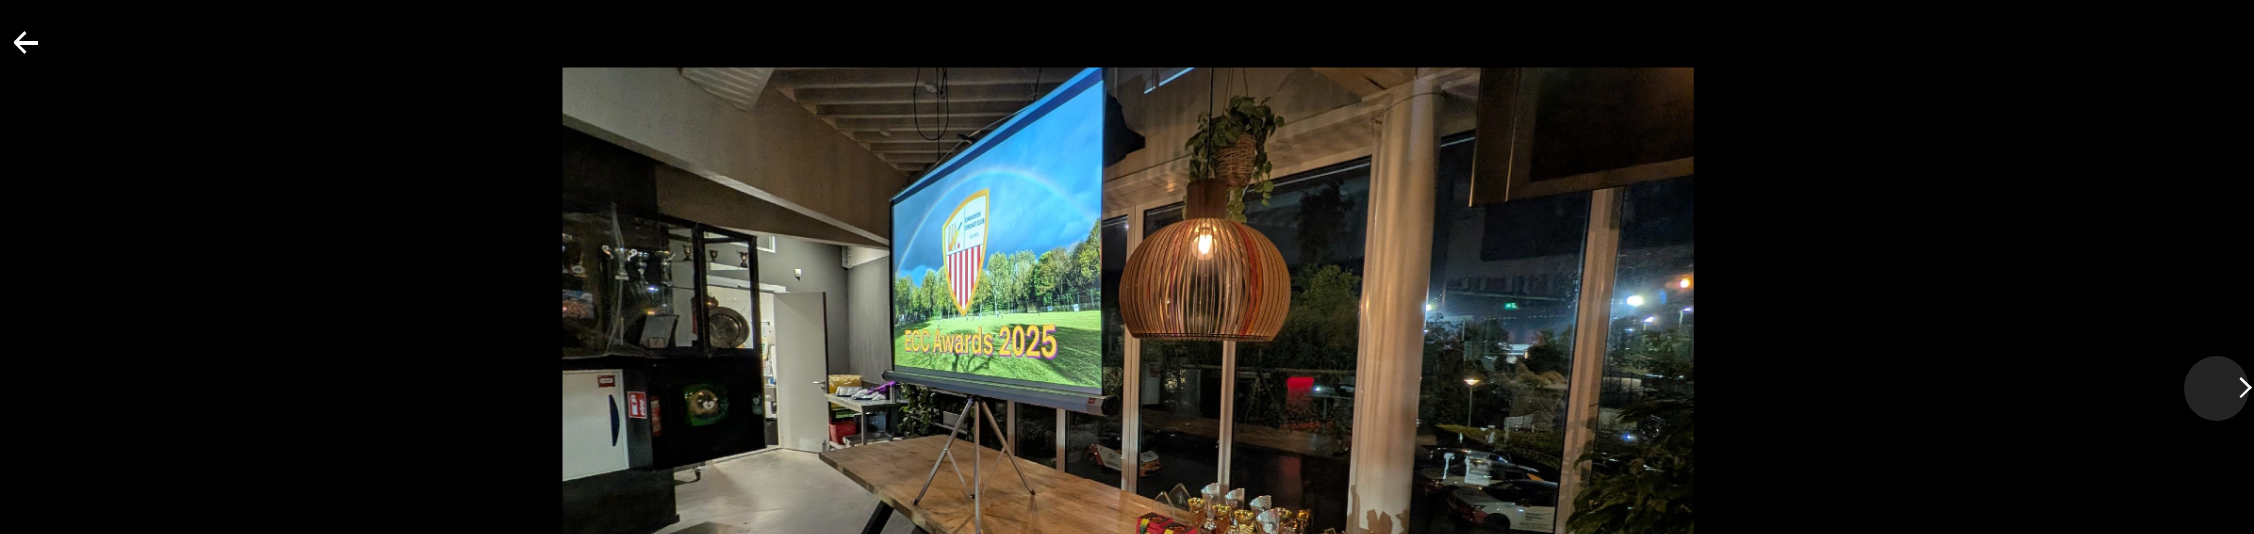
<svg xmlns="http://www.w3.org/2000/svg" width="2254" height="534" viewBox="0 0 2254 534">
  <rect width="100%" height="100%" fill="#000"/>
  <path d="M24.5 54L26.5 51.5C16 41.5 16 43.5 26.5 33.5L24.5 31L14.5 41C13.5 41.5 13.5 43.5 14.5 44Z" fill="#fff"/>
  <rect x="16" y="41" width="22" height="4" fill="#fff"/>
  <image x="562" y="67" width="1132" height="467" href="images/1.png"/>
  <circle cx="2216.5" cy="388.5" r="32.5" fill="#242424"/>
  <path d="M2241 377L2252 387.5L2250 389.5L2239.5 379Z" fill="#fff"/>
  <path d="M2250 386L2252 387.5L2241 398L2239.5 396.5Z" fill="#fff"/>
</svg>
